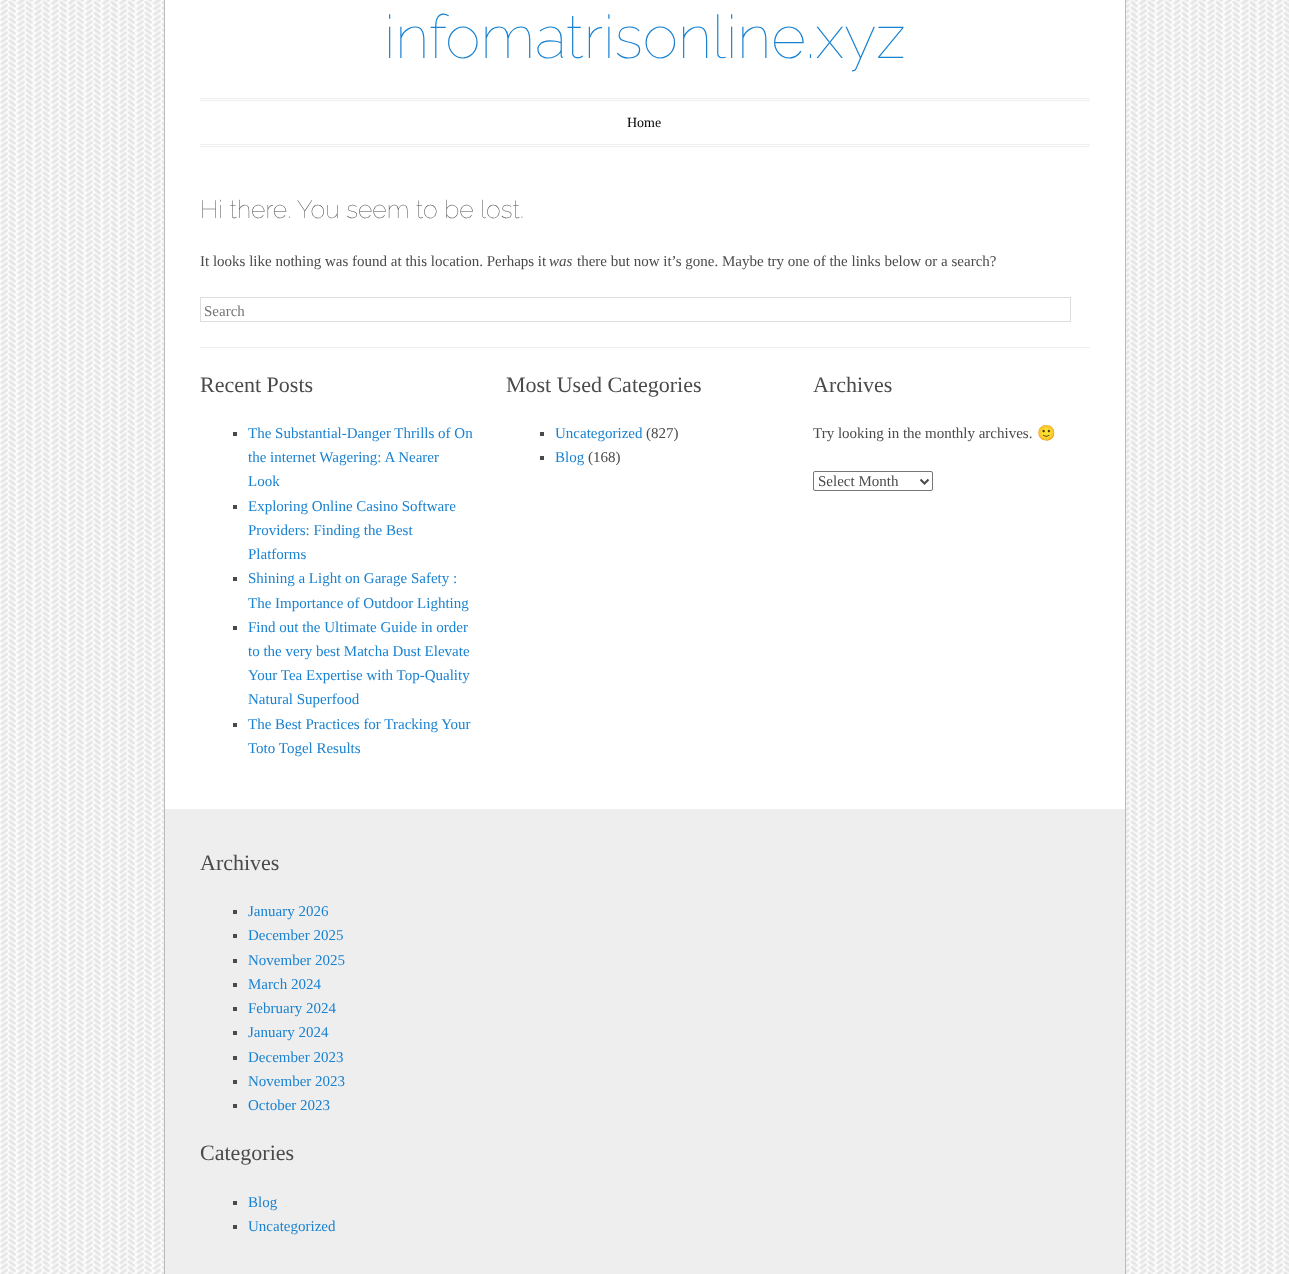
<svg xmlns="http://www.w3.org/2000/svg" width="1289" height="1274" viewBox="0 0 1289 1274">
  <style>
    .t1 { font: 100 60px Raleway; fill: #1982d1; }
    .t2 { font: 14px Liberation Serif; fill: #000; }
    .t3 { font: 100 25px Raleway; fill: #4a4a4a; }
    .t4 { font: 15px Liberation Serif; fill: #4a4a4a; }
    .t5 { font: italic 15px Liberation Serif; fill: #4a4a4a; }
    .t6 { font: 15px Liberation Serif; fill: #757575; }
    .t7 { font: 22px Liberation Serif; fill: #4a4a4a; }
    .t8 { font: 15px Liberation Serif; fill: #1982d1; }
    .t9 { font: 15px Noto Color Emoji; fill: #4a4a4a; }
  </style>
  <rect width="100%" height="100%" fill="#fff"/>
  <image x="0" y="0" width="1289" height="1274" href="images/1.png"/>
  <rect x="165" y="0" width="960" height="809" fill="#fff"/>
  <rect x="164.5" y="-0.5" width="961" height="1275" fill="none" stroke="#bbb"/>
  <text x="384" y="58" class="t1">infomatrisonline.xyz</text>
  <rect x="200" y="98" width="890" height="1" fill="#eee"/>
  <rect x="200" y="100" width="890" height="1" fill="#eee"/>
  <rect x="200" y="144" width="890" height="1" fill="#eee"/>
  <rect x="200" y="146" width="890" height="1" fill="#eee"/>
  <text x="627" y="127" class="t2">Home</text>
  <rect x="165" y="809" width="960" height="465" fill="#eee"/>
  <text x="200" y="218" class="t3">Hi there. You seem to be lost.</text>
  <text x="200" y="266" class="t4">It looks like nothing was found at this location. Perhaps it</text>
  <text x="549" y="266" class="t5">was</text>
  <text x="577" y="266" class="t4">there but now it’s gone. Maybe try one of the links below or a search?</text>
  <rect x="200" y="347" width="890" height="1" fill="#eee"/>
  <rect x="200.5" y="297.5" width="870" height="24" fill="none" stroke="#ddd"/>
  <text x="204" y="316" class="t6">Search</text>
  <text x="200" y="392" class="t7">Recent Posts</text>
  <rect x="233" y="432" width="4" height="4" fill="#4a4a4a"/>
  <text x="248" y="438" class="t8">The Substantial-Danger Thrills of On</text>
  <text x="248" y="462" class="t8">the internet Wagering: A Nearer</text>
  <text x="248" y="486" class="t8">Look</text>
  <rect x="233" y="505" width="4" height="4" fill="#4a4a4a"/>
  <text x="248" y="511" class="t8">Exploring Online Casino Software</text>
  <text x="248" y="535" class="t8">Providers: Finding the Best</text>
  <text x="248" y="559" class="t8">Platforms</text>
  <rect x="233" y="577" width="4" height="4" fill="#4a4a4a"/>
  <text x="248" y="583" class="t8">Shining a Light on Garage Safety :</text>
  <text x="248" y="608" class="t8">The Importance of Outdoor Lighting</text>
  <rect x="233" y="626" width="4" height="4" fill="#4a4a4a"/>
  <text x="248" y="632" class="t8">Find out the Ultimate Guide in order</text>
  <text x="248" y="656" class="t8">to the very best Matcha Dust Elevate</text>
  <text x="248" y="680" class="t8">Your Tea Expertise with Top-Quality</text>
  <text x="248" y="704" class="t8">Natural Superfood</text>
  <rect x="233" y="723" width="4" height="4" fill="#4a4a4a"/>
  <text x="248" y="729" class="t8">The Best Practices for Tracking Your</text>
  <text x="248" y="753" class="t8">Toto Togel Results</text>
  <text x="506" y="392" class="t7">Most Used Categories</text>
  <rect x="540" y="432" width="4" height="4" fill="#4a4a4a"/>
  <text x="555" y="438" class="t8">Uncategorized</text>
  <text x="646" y="438" class="t4">(827)</text>
  <rect x="540" y="456" width="4" height="4" fill="#4a4a4a"/>
  <text x="555" y="462" class="t8">Blog</text>
  <text x="588" y="462" class="t4">(168)</text>
  <text x="813" y="392" class="t7">Archives</text>
  <text x="813" y="438" class="t4">Try looking in the monthly archives.</text>
  <text x="1037" y="438" class="t9">🙂</text>
  <rect x="813.5" y="471.5" width="119" height="19" rx="1.5" fill="none" stroke="#767676"/>
  <path d="M920.5 479.5L924.5 483.5L928.5 479.5" fill="none" stroke="#4a4a4a" stroke-width="2"/>
  <text x="818" y="486" class="t4">Select Month</text>
  <text x="200" y="870" class="t7">Archives</text>
  <rect x="233" y="910" width="4" height="4" fill="#4a4a4a"/>
  <text x="248" y="916" class="t8">January 2026</text>
  <rect x="233" y="934" width="4" height="4" fill="#4a4a4a"/>
  <text x="248" y="940" class="t8">December 2025</text>
  <rect x="233" y="959" width="4" height="4" fill="#4a4a4a"/>
  <text x="248" y="965" class="t8">November 2025</text>
  <rect x="233" y="983" width="4" height="4" fill="#4a4a4a"/>
  <text x="248" y="989" class="t8">March 2024</text>
  <rect x="233" y="1007" width="4" height="4" fill="#4a4a4a"/>
  <text x="248" y="1013" class="t8">February 2024</text>
  <rect x="233" y="1031" width="4" height="4" fill="#4a4a4a"/>
  <text x="248" y="1037" class="t8">January 2024</text>
  <rect x="233" y="1056" width="4" height="4" fill="#4a4a4a"/>
  <text x="248" y="1062" class="t8">December 2023</text>
  <rect x="233" y="1080" width="4" height="4" fill="#4a4a4a"/>
  <text x="248" y="1086" class="t8">November 2023</text>
  <rect x="233" y="1104" width="4" height="4" fill="#4a4a4a"/>
  <text x="248" y="1110" class="t8">October 2023</text>
  <text x="200" y="1160" class="t7">Categories</text>
  <rect x="233" y="1201" width="4" height="4" fill="#4a4a4a"/>
  <text x="248" y="1207" class="t8">Blog</text>
  <rect x="233" y="1225" width="4" height="4" fill="#4a4a4a"/>
  <text x="248" y="1231" class="t8">Uncategorized</text>
</svg>
